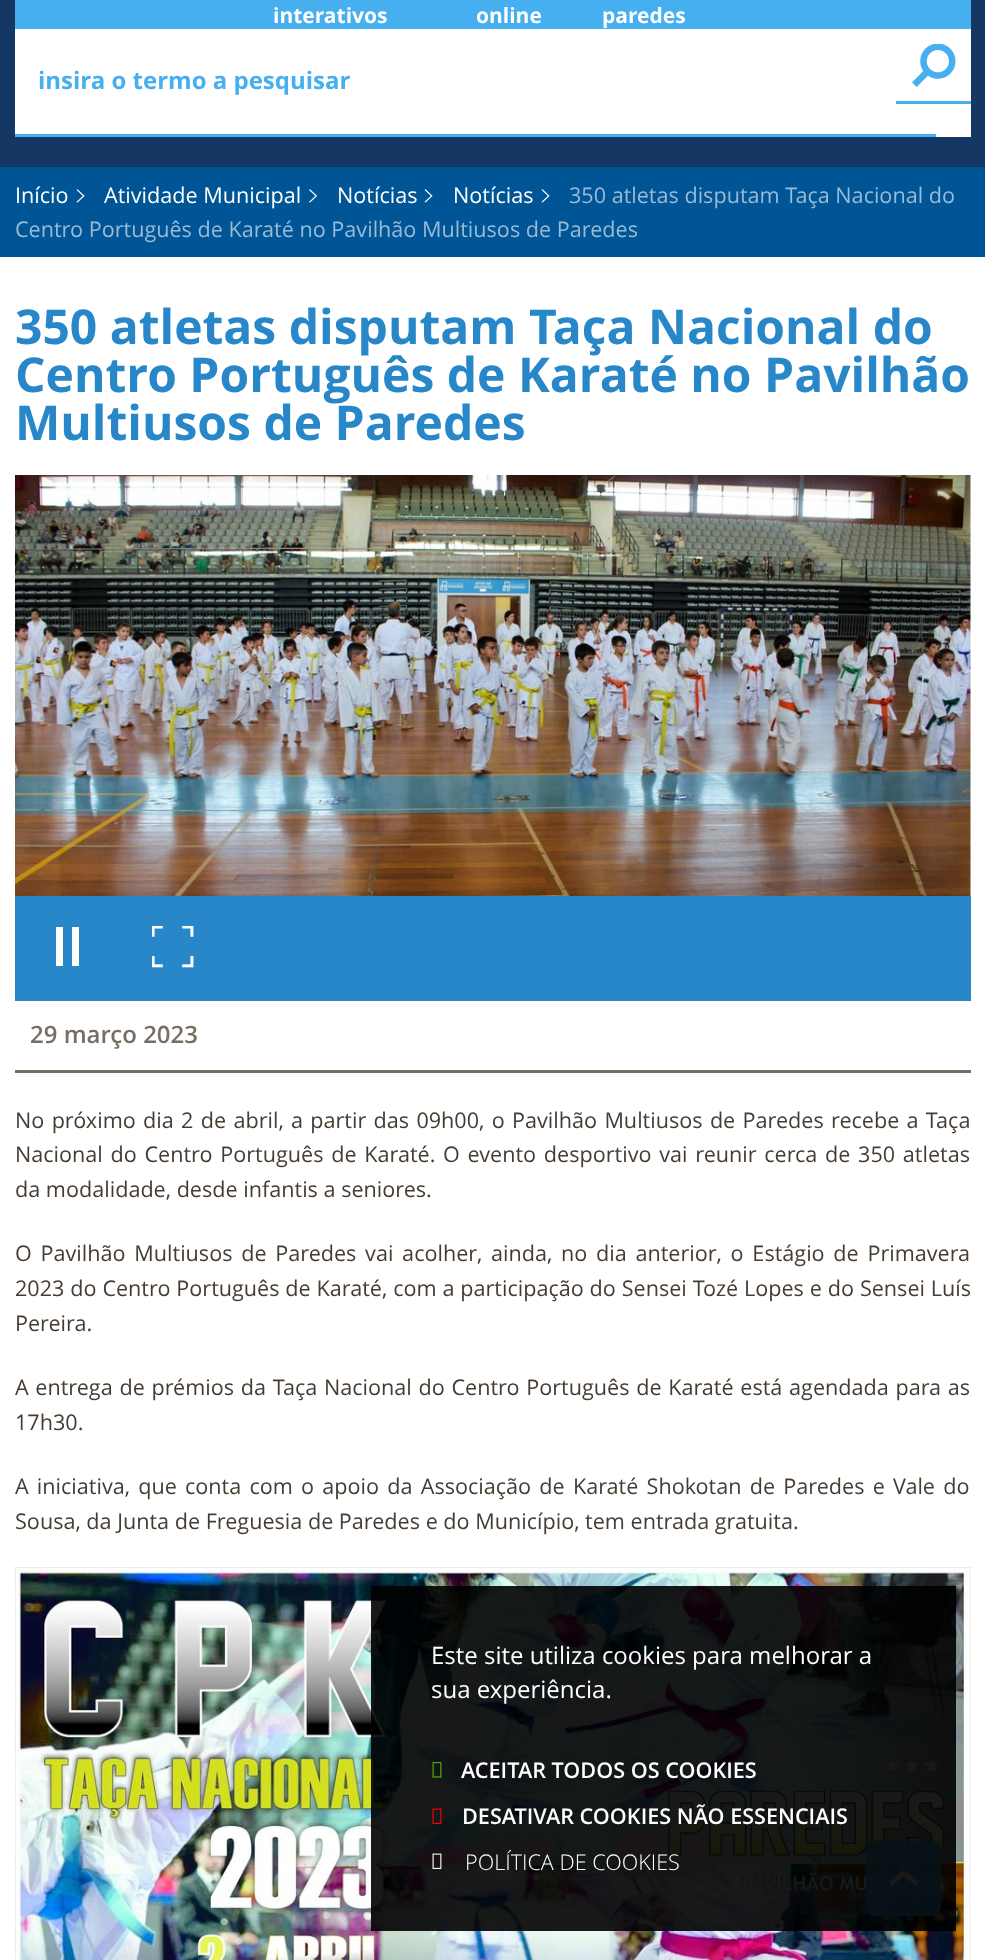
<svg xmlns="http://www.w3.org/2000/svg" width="985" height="1960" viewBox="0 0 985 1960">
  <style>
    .t1 { font: bold 21px Open Sans; fill: #fff; }
    .t2 { font: bold 24px Open Sans; fill: #46aff0; }
    .t3 { font: 21.6px Open Sans; fill: #fff; }
    .t4 { font: 21.6px Open Sans; fill: #99bbd5; }
    .t5 { font: bold 48px Open Sans; fill: #2887c8; }
    .t6 { font: 600 24px Open Sans; fill: #786e64; }
    .t7 { font: 21.6px Open Sans; fill: #463c32; }
    .t8 { font: 24px Open Sans; fill: #fff; }
    .t9 { font: 600 21.6px Open Sans; fill: #fff; }
    .t10 { font: 300 21.6px Open Sans; fill: #fff; }
  </style>
  <defs>
    <clipPath id="clip1"><rect x="56" y="896" width="24" height="70"/></clipPath>
  </defs>
  <rect width="100%" height="100%" fill="#fff"/>
  <rect x="0" y="0" width="985" height="167" fill="#143764"/>
  <rect x="15" y="0" width="956" height="29" fill="#46aff0"/>
  <text x="273" y="23" class="t1">interativos</text>
  <text x="476" y="23" class="t1">online</text>
  <text x="602" y="23" class="t1">paredes</text>
  <rect x="15" y="29" width="956" height="108" fill="#fff"/>
  <rect x="15" y="134" width="921" height="3" fill="#46aff0"/>
  <text x="38" y="89" class="t2">insira o termo a pesquisar</text>
  <image x="912" y="44" width="44" height="43" href="images/1.png"/>
  <rect x="896" y="101" width="75" height="3" fill="#46aff0"/>
  <rect x="0" y="167" width="985" height="90" fill="#005596"/>
  <text x="15" y="203" class="t3">Início</text>
  <image x="76" y="189" width="9" height="14" href="images/2.png"/>
  <text x="104" y="203" class="t3">Atividade Municipal</text>
  <image x="309" y="189" width="8" height="14" href="images/3.png"/>
  <text x="337" y="203" class="t3">Notícias</text>
  <image x="424" y="189" width="9" height="14" href="images/2.png"/>
  <text x="453" y="203" class="t3">Notícias</text>
  <image x="541" y="189" width="9" height="14" href="images/2.png"/>
  <text x="569" y="203" class="t4">350 atletas disputam Taça Nacional do</text>
  <text x="15" y="237" class="t4">Centro Português de Karaté no Pavilhão Multiusos de Paredes</text>
  <text x="15" y="344" class="t5">350 atletas disputam Taça Nacional do</text>
  <text x="15" y="392" class="t5">Centro Português de Karaté no Pavilhão</text>
  <text x="15" y="440" class="t5">Multiusos de Paredes</text>
  <image x="15" y="475" width="956" height="421" href="images/4.png"/>
  <image x="937" y="490" width="15" height="11" href="images/5.png"/>
  <rect x="15" y="896" width="956" height="105" fill="#2887c8"/>
  <g clip-path="url(#clip1)">
    <path d="M56 927H63V966H56ZM72 927H79V966H72ZM56 792L79 811L56 831Z" fill="#fff"/>
  </g>
  <image x="152" y="926" width="42" height="42" href="images/6.png"/>
  <rect x="15" y="1070" width="956" height="3" fill="#786e64"/>
  <text x="30" y="1043" class="t6">29 março 2023</text>
  <text x="15" y="1128" word-spacing="1.7" class="t7">No próximo dia 2 de abril, a partir das 09h00, o Pavilhão Multiusos de Paredes recebe a Taça</text>
  <text x="15" y="1162" word-spacing="2.1" class="t7">Nacional do Centro Português de Karaté. O evento desportivo vai reunir cerca de 350 atletas</text>
  <text x="15" y="1197" class="t7">da modalidade, desde infantis a seniores.</text>
  <text x="15" y="1261" word-spacing="3.1" class="t7">O Pavilhão Multiusos de Paredes vai acolher, ainda, no dia anterior, o Estágio de Primavera</text>
  <text x="15" y="1296" word-spacing="0.25" class="t7">2023 do Centro Português de Karaté, com a participação do Sensei Tozé Lopes e do Sensei Luís</text>
  <text x="15" y="1331" class="t7">Pereira.</text>
  <text x="15" y="1395" word-spacing="1.1" class="t7">A entrega de prémios da Taça Nacional do Centro Português de Karaté está agendada para as</text>
  <text x="15" y="1430" class="t7">17h30.</text>
  <text x="15" y="1494" word-spacing="2.6" class="t7">A iniciativa, que conta com o apoio da Associação de Karaté Shokotan de Paredes e Vale do</text>
  <text x="15" y="1529" class="t7">Sousa, da Junta de Freguesia de Paredes e do Município, tem entrada gratuita.</text>
  <image x="15" y="1567" width="956" height="393" href="images/7.png"/>
  <rect x="866" y="1841" width="75" height="75" rx="9" fill="#46aff0e6"/>
  <image x="890" y="1871" width="28" height="15" href="images/8.png"/>
  <rect x="371" y="1586" width="585" height="345" fill="#000000e6"/>
  <text x="431" y="1664" class="t8">Este site utiliza cookies para melhorar a</text>
  <text x="431" y="1698" class="t8">sua experiência.</text>
  <image x="432" y="1762" width="10" height="16" href="images/9.png"/>
  <text x="461" y="1778" class="t9">ACEITAR TODOS OS COOKIES</text>
  <image x="432" y="1808" width="10" height="16" href="images/10.png"/>
  <text x="462" y="1824" class="t9">DESATIVAR COOKIES NÃO ESSENCIAIS</text>
  <image x="432" y="1853" width="10" height="16" href="images/11.png"/>
  <text x="465" y="1870" class="t10">POLÍTICA DE COOKIES</text>
</svg>
